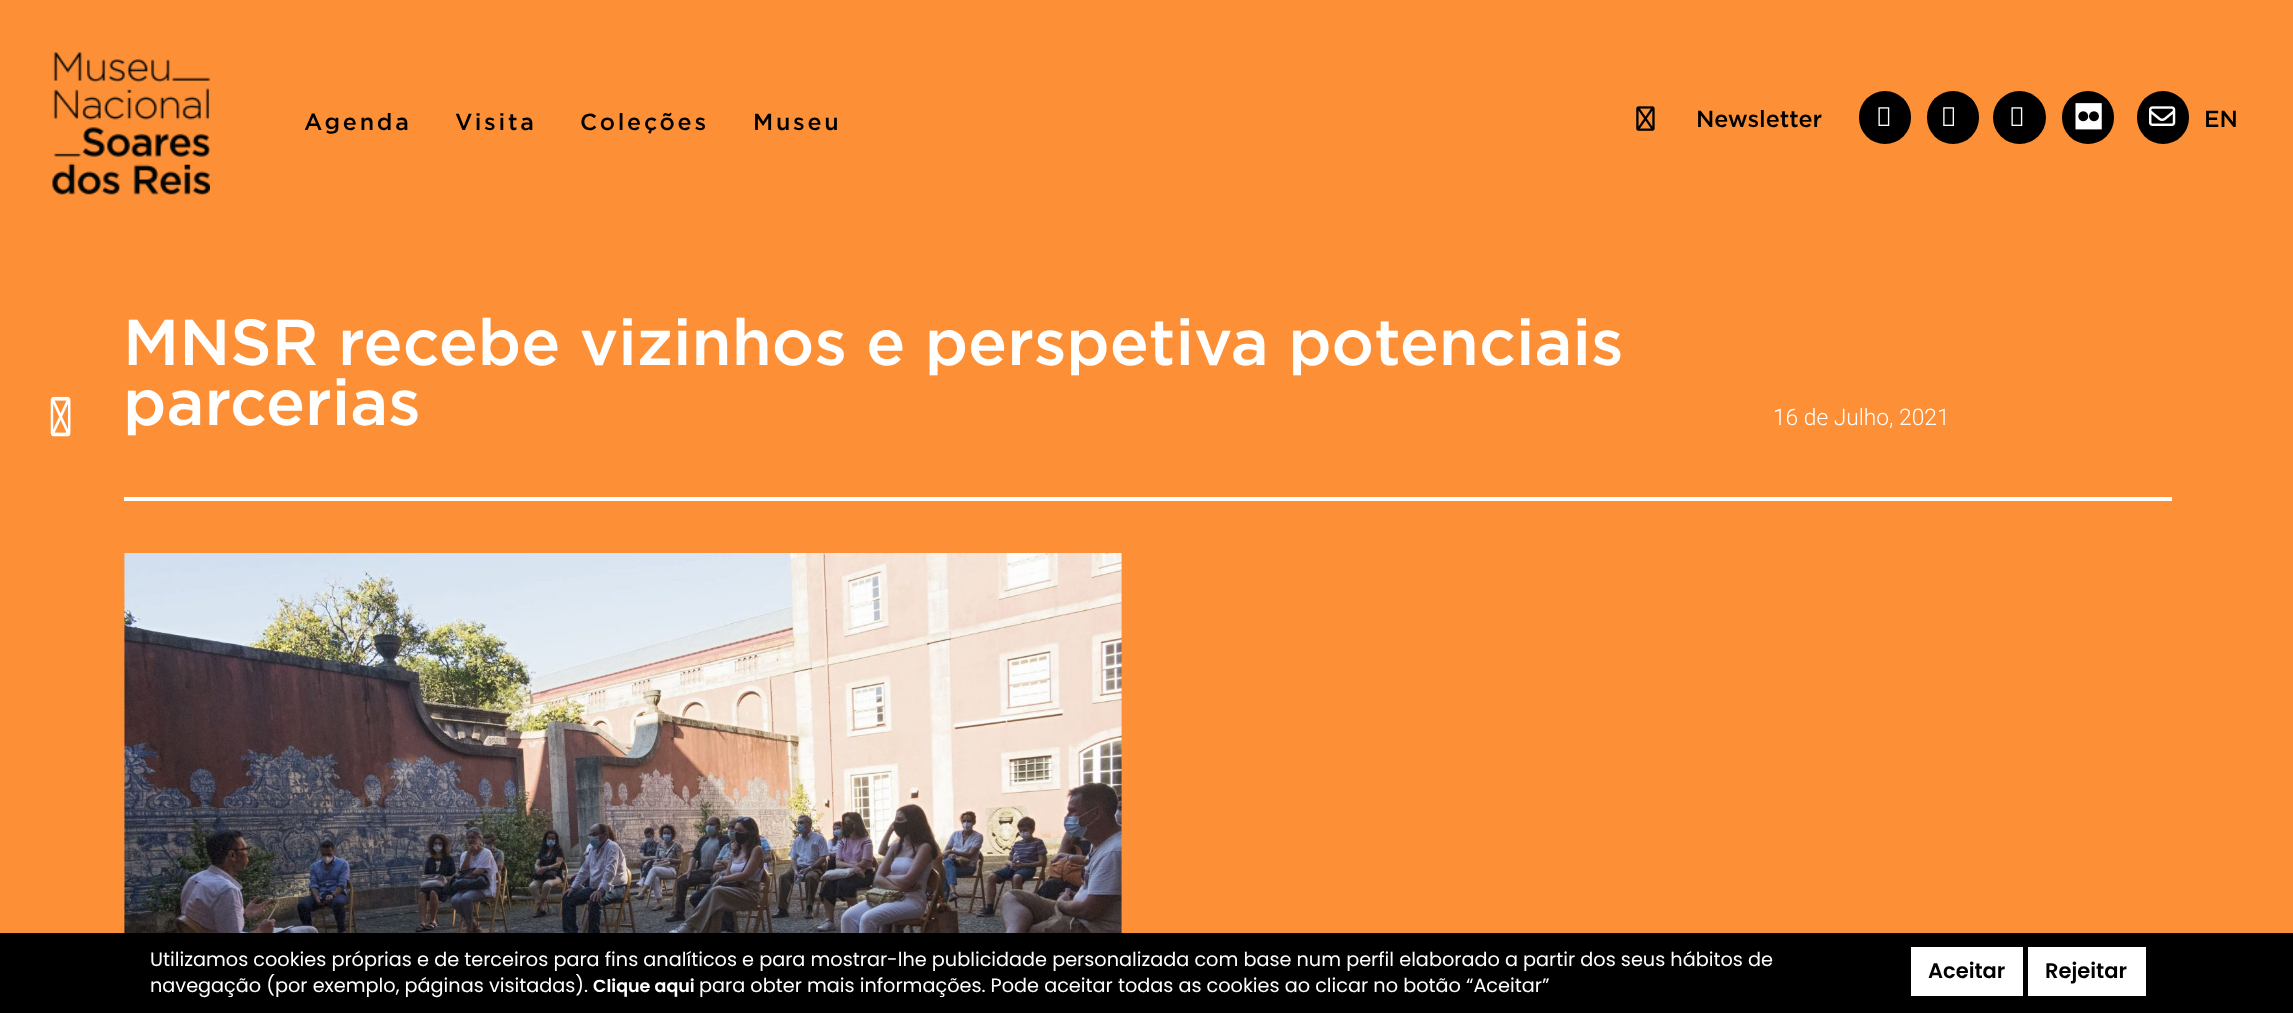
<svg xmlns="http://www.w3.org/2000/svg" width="2293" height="1013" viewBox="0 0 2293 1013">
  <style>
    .t1 { font: 500 23.25px Gotham; letter-spacing: 2.75px; fill: #000; }
    .t2 { font: 500 23.25px Gotham; fill: #000; }
    .t3 { font: 500 64.75px Gotham; fill: #fff; }
    .t4 { font: 300 22.75px Roboto; fill: #fff; }
    .t5 { font: 19.25px Poppins; fill: #fff; }
    .t6 { font: 600 17.5px Poppins; fill: #fff; }
    .t7 { font: 600 21px Poppins; fill: #000; }
  </style>
  <rect width="100%" height="100%" fill="#fd9037"/>
  <image x="52" y="52" width="158" height="143" href="images/1.png"/>
  <text x="304" y="130" class="t1">Agenda</text>
  <text x="455" y="130" class="t1">Visita</text>
  <text x="580" y="130" class="t1">Coleções</text>
  <text x="753" y="130" class="t1">Museu</text>
  <image x="1636" y="106" width="19" height="25" href="images/2.png"/>
  <text x="1696" y="127" class="t2">Newsletter</text>
  <rect x="1859" y="91" width="52" height="53" rx="26" fill="#000"/>
  <image x="1878" y="107" width="12" height="19" href="images/3.png"/>
  <rect x="1927" y="91" width="52" height="53" rx="26" fill="#000"/>
  <image x="1943" y="107" width="11" height="19" href="images/4.png"/>
  <circle cx="2019.5" cy="117.5" r="26.5" fill="#000"/>
  <image x="2011" y="107" width="12" height="19" href="images/3.png"/>
  <rect x="2062" y="91" width="52" height="53" rx="26" fill="#000"/>
  <image x="2075" y="103" width="27" height="27" href="images/5.png"/>
  <rect x="2137" y="91" width="52" height="53" rx="26" fill="#000"/>
  <image x="2149" y="106" width="27" height="20" href="images/6.png"/>
  <text x="2204" y="127" class="t2">EN</text>
  <image x="50" y="396" width="21" height="41" href="images/7.png"/>
  <rect x="124" y="497" width="2048" height="4" fill="#fff"/>
  <text x="123" y="365" class="t3">MNSR recebe vizinhos e perspetiva potenciais</text>
  <text x="123" y="425" class="t3">parcerias</text>
  <text x="1773" y="425" class="t4">16 de Julho, 2021</text>
  <image x="124" y="553" width="998" height="380" href="images/8.png"/>
  <rect x="0" y="933" width="2293" height="80" fill="#000"/>
  <text x="150" y="966" class="t5">Utilizamos cookies próprias e de terceiros para fins analíticos e para mostrar-lhe publicidade personalizada com base num perfil elaborado a partir dos seus hábitos de</text>
  <text x="150" y="992" class="t5">navegação (por exemplo, páginas visitadas).</text>
  <text x="593" y="992" class="t6">Clique aqui</text>
  <text x="699" y="992" class="t5">para obter mais informações. Pode aceitar todas as cookies ao clicar no botão “Aceitar”</text>
  <rect x="1911" y="947" width="112" height="49" fill="#fff"/>
  <text x="1928" y="978" class="t7">Aceitar</text>
  <rect x="2028" y="947" width="118" height="49" fill="#fff"/>
  <text x="2045" y="978" class="t7">Rejeitar</text>
</svg>
